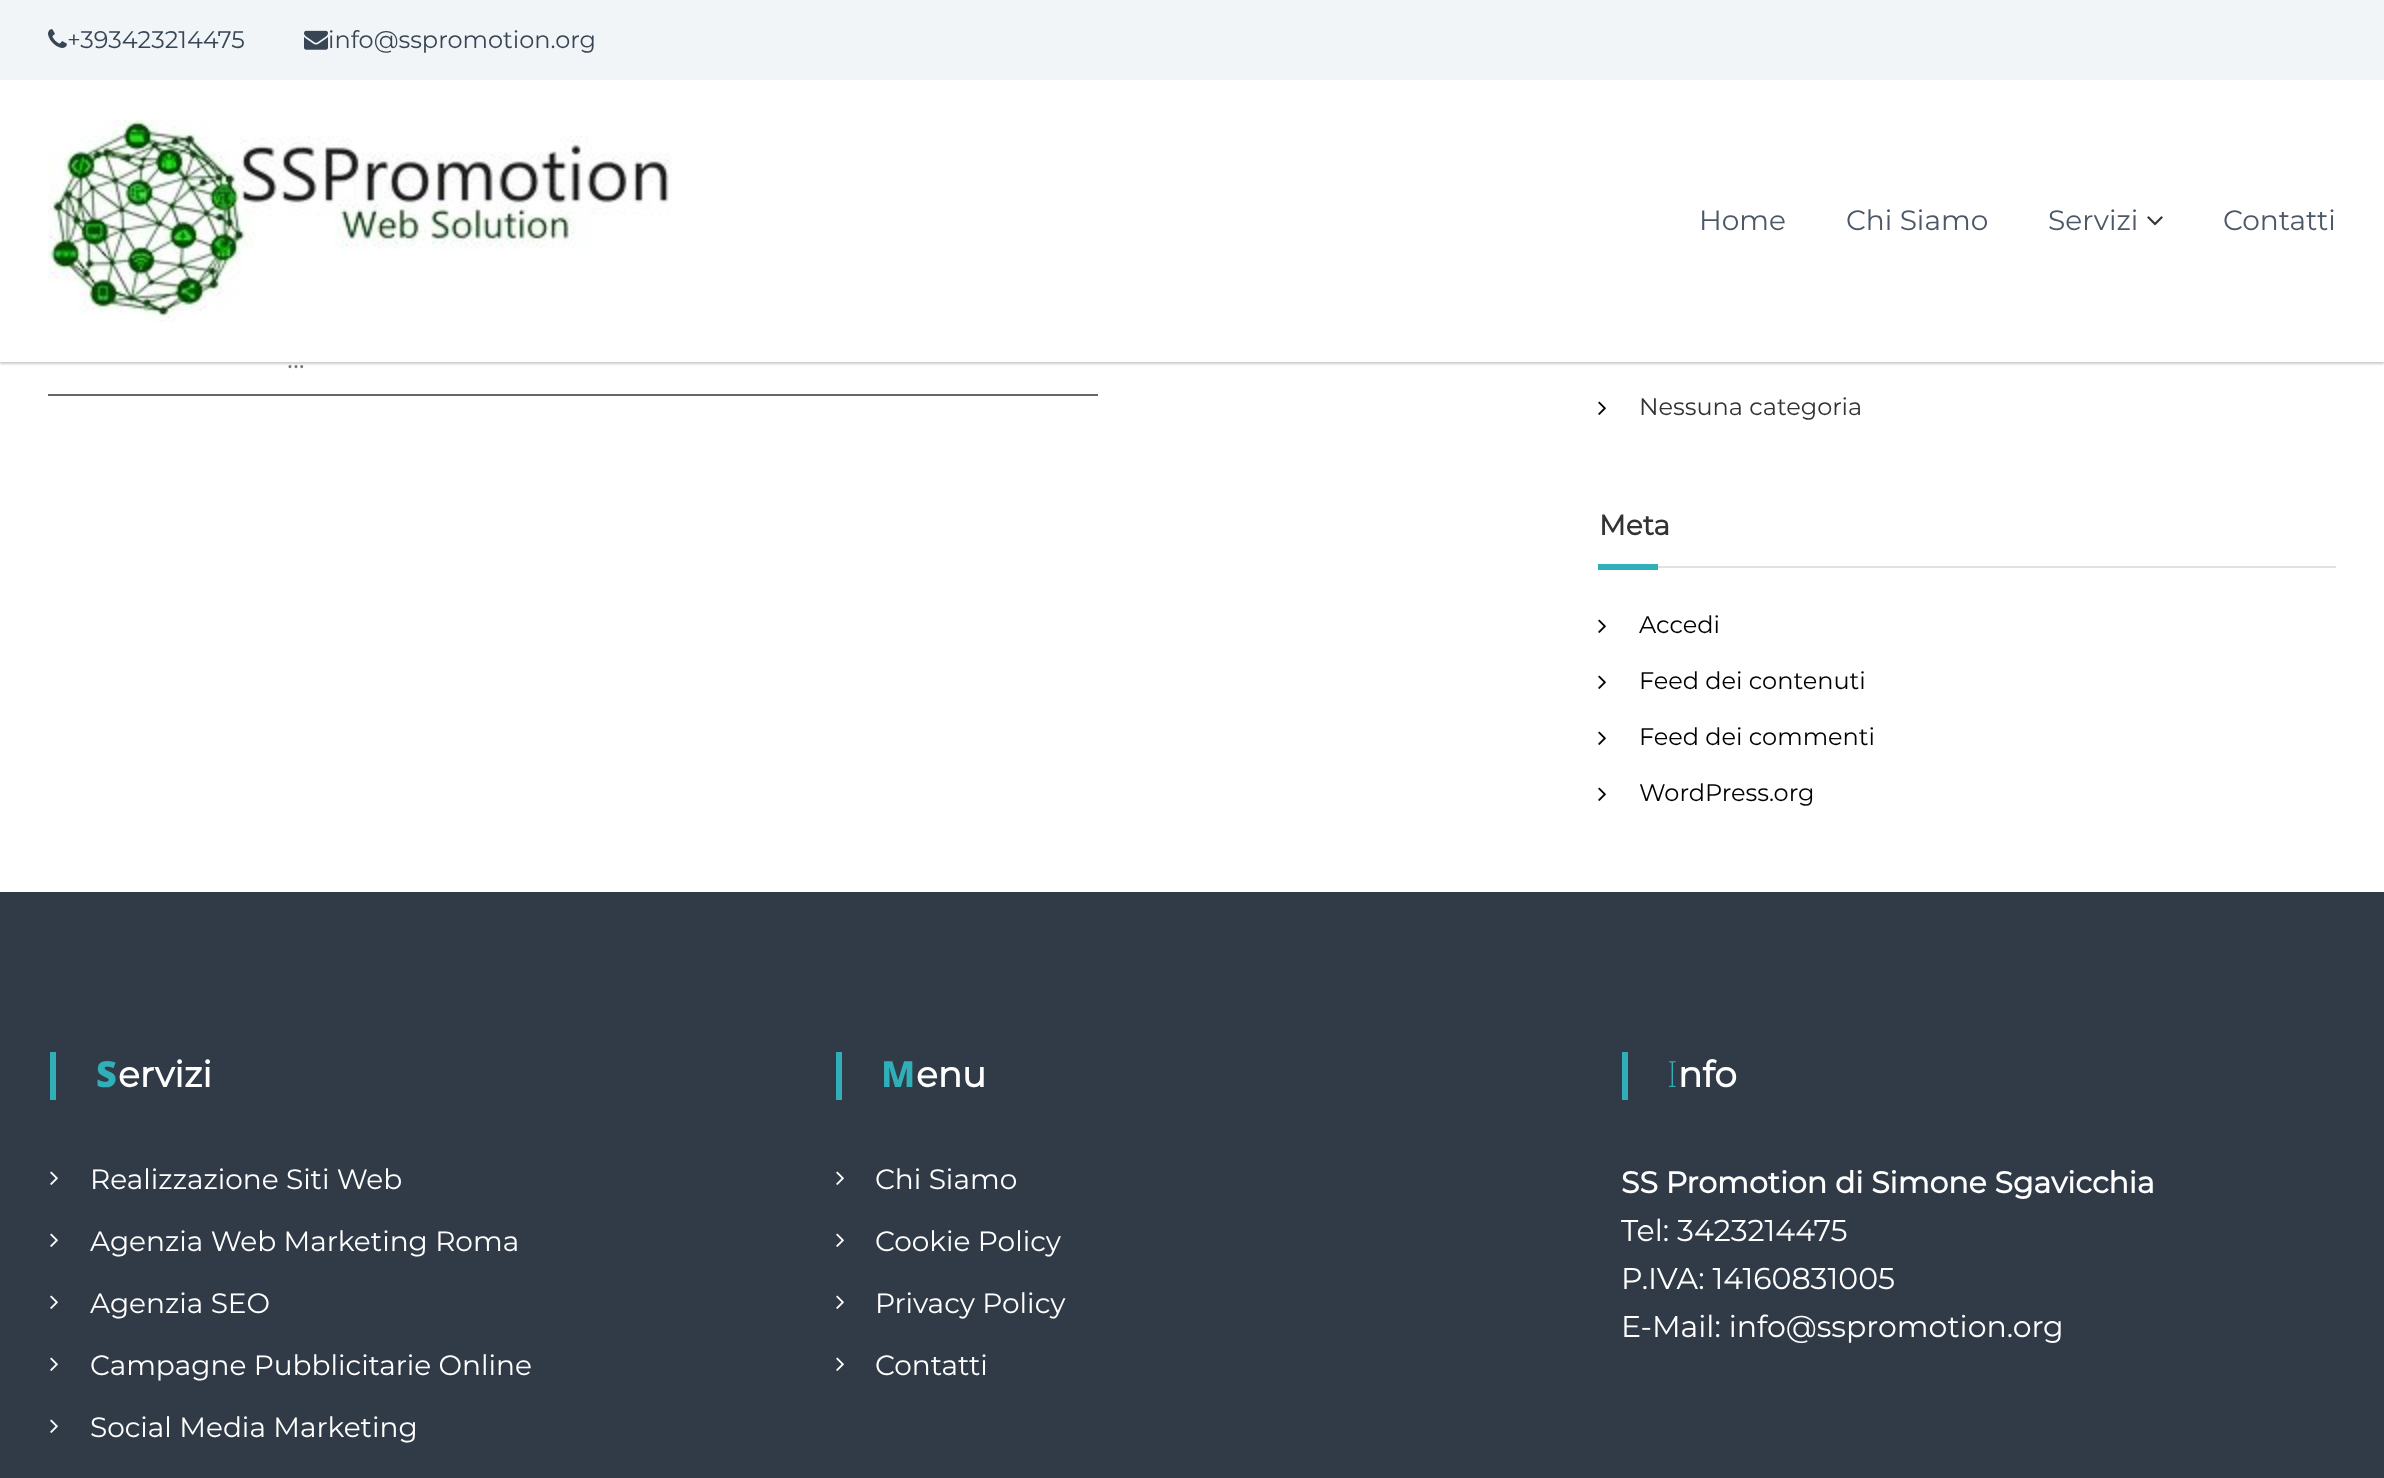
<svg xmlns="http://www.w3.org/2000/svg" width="2384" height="1478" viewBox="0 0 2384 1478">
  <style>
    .t1 { font: 24px Montserrat; fill: #384554; }
    .t2 { font: 28px Montserrat; fill: #4c5867; }
    .t3 { font: 28px Montserrat; fill: #757575; }
    .t4 { font: 24px Montserrat; fill: #333; }
    .t5 { font: bold 28px Montserrat; fill: #333; }
    .t6 { font: 24px Montserrat; fill: #000; }
    .t7 { font: 900 36px Noto Sans; fill: #30afb8; }
    .t8 { font: bold 36px Montserrat; fill: #fff; }
    .t9 { font: 28px Montserrat; fill: #fff; }
    .t10 { font: 800 36px Noto Sans; fill: #30afb8; }
    .t11 { font: 200 36px Noto Sans; fill: #30afb8; }
    .t12 { font: bold 30px Montserrat; fill: #fff; }
    .t13 { font: 30px Montserrat; fill: #fff; }
  </style>
  <rect width="100%" height="100%" fill="#fff"/>
  <rect x="0" y="0" width="2384" height="80" fill="#f1f5f8"/>
  <image x="48" y="29" width="19" height="19" href="images/1.png"/>
  <text x="67" y="48" class="t1">+393423214475</text>
  <image x="304" y="30" width="24" height="20" href="images/2.png"/>
  <text x="328" y="48" class="t1">info@sspromotion.org</text>
  <rect x="0" y="82" width="2384" height="282" fill="#00000033" filter="blur(1px)"/>
  <rect x="0" y="80" width="2384" height="282" fill="#fff"/>
  <image x="47" y="120" width="625" height="202" href="images/3.png"/>
  <text x="1699" y="230" class="t2">Home</text>
  <text x="1846" y="230" class="t2">Chi Siamo</text>
  <text x="2048" y="230" class="t2">Servizi</text>
  <image x="2147" y="216" width="16" height="10" href="images/4.png"/>
  <text x="2223" y="230" class="t2">Contatti</text>
  <rect x="48" y="394" width="1050" height="2" fill="#666"/>
  <text x="287" y="368" class="t3">...</text>
  <image x="1598" y="401" width="8" height="14" href="images/5.png"/>
  <text x="1639" y="415" class="t4">Nessuna categoria</text>
  <text x="1599" y="535" class="t5">Meta</text>
  <rect x="1598" y="564" width="60" height="6" fill="#30afb8"/>
  <rect x="1658" y="566" width="678" height="2" fill="#e1e1e1"/>
  <image x="1598" y="619" width="8" height="14" href="images/5.png"/>
  <text x="1639" y="633" class="t6">Accedi</text>
  <image x="1598" y="675" width="8" height="14" href="images/5.png"/>
  <text x="1639" y="689" class="t6">Feed dei contenuti</text>
  <image x="1598" y="731" width="8" height="14" href="images/5.png"/>
  <text x="1639" y="745" class="t6">Feed dei commenti</text>
  <image x="1598" y="787" width="8" height="14" href="images/5.png"/>
  <text x="1639" y="801" class="t6">WordPress.org</text>
  <rect x="0" y="892" width="2384" height="586" fill="#313b48"/>
  <rect x="50" y="1052" width="6" height="48" fill="#30afb8"/>
  <text x="96" y="1087" class="t7">S</text>
  <text x="118" y="1087" class="t8">ervizi</text>
  <image x="50" y="1171" width="8" height="14" href="images/6.png"/>
  <text x="90" y="1189" class="t9">Realizzazione Siti Web</text>
  <image x="50" y="1233" width="8" height="14" href="images/6.png"/>
  <text x="90" y="1251" class="t9">Agenzia Web Marketing Roma</text>
  <image x="50" y="1295" width="8" height="14" href="images/6.png"/>
  <text x="90" y="1313" class="t9">Agenzia SEO</text>
  <image x="50" y="1357" width="8" height="14" href="images/6.png"/>
  <text x="90" y="1375" class="t9">Campagne Pubblicitarie Online</text>
  <image x="50" y="1419" width="8" height="14" href="images/6.png"/>
  <text x="90" y="1437" class="t9">Social Media Marketing</text>
  <rect x="836" y="1052" width="6" height="48" fill="#30afb8"/>
  <text x="881" y="1087" class="t10">M</text>
  <text x="916" y="1087" class="t8">enu</text>
  <image x="836" y="1171" width="8" height="14" href="images/6.png"/>
  <text x="875" y="1189" class="t9">Chi Siamo</text>
  <image x="836" y="1233" width="8" height="14" href="images/6.png"/>
  <text x="875" y="1251" class="t9">Cookie Policy</text>
  <image x="836" y="1295" width="8" height="14" href="images/6.png"/>
  <text x="875" y="1313" class="t9">Privacy Policy</text>
  <image x="836" y="1357" width="8" height="14" href="images/6.png"/>
  <text x="875" y="1375" class="t9">Contatti</text>
  <rect x="1622" y="1052" width="6" height="48" fill="#30afb8"/>
  <text x="1667" y="1087" class="t11">I</text>
  <text x="1678" y="1087" class="t8">nfo</text>
  <text x="1621" y="1193" class="t12">SS Promotion di Simone Sgavicchia</text>
  <text x="1621" y="1241" class="t13">Tel: 3423214475</text>
  <text x="1621" y="1289" class="t13">P.IVA: 14160831005</text>
  <text x="1621" y="1337" class="t13">E-Mail: info@sspromotion.org</text>
</svg>
